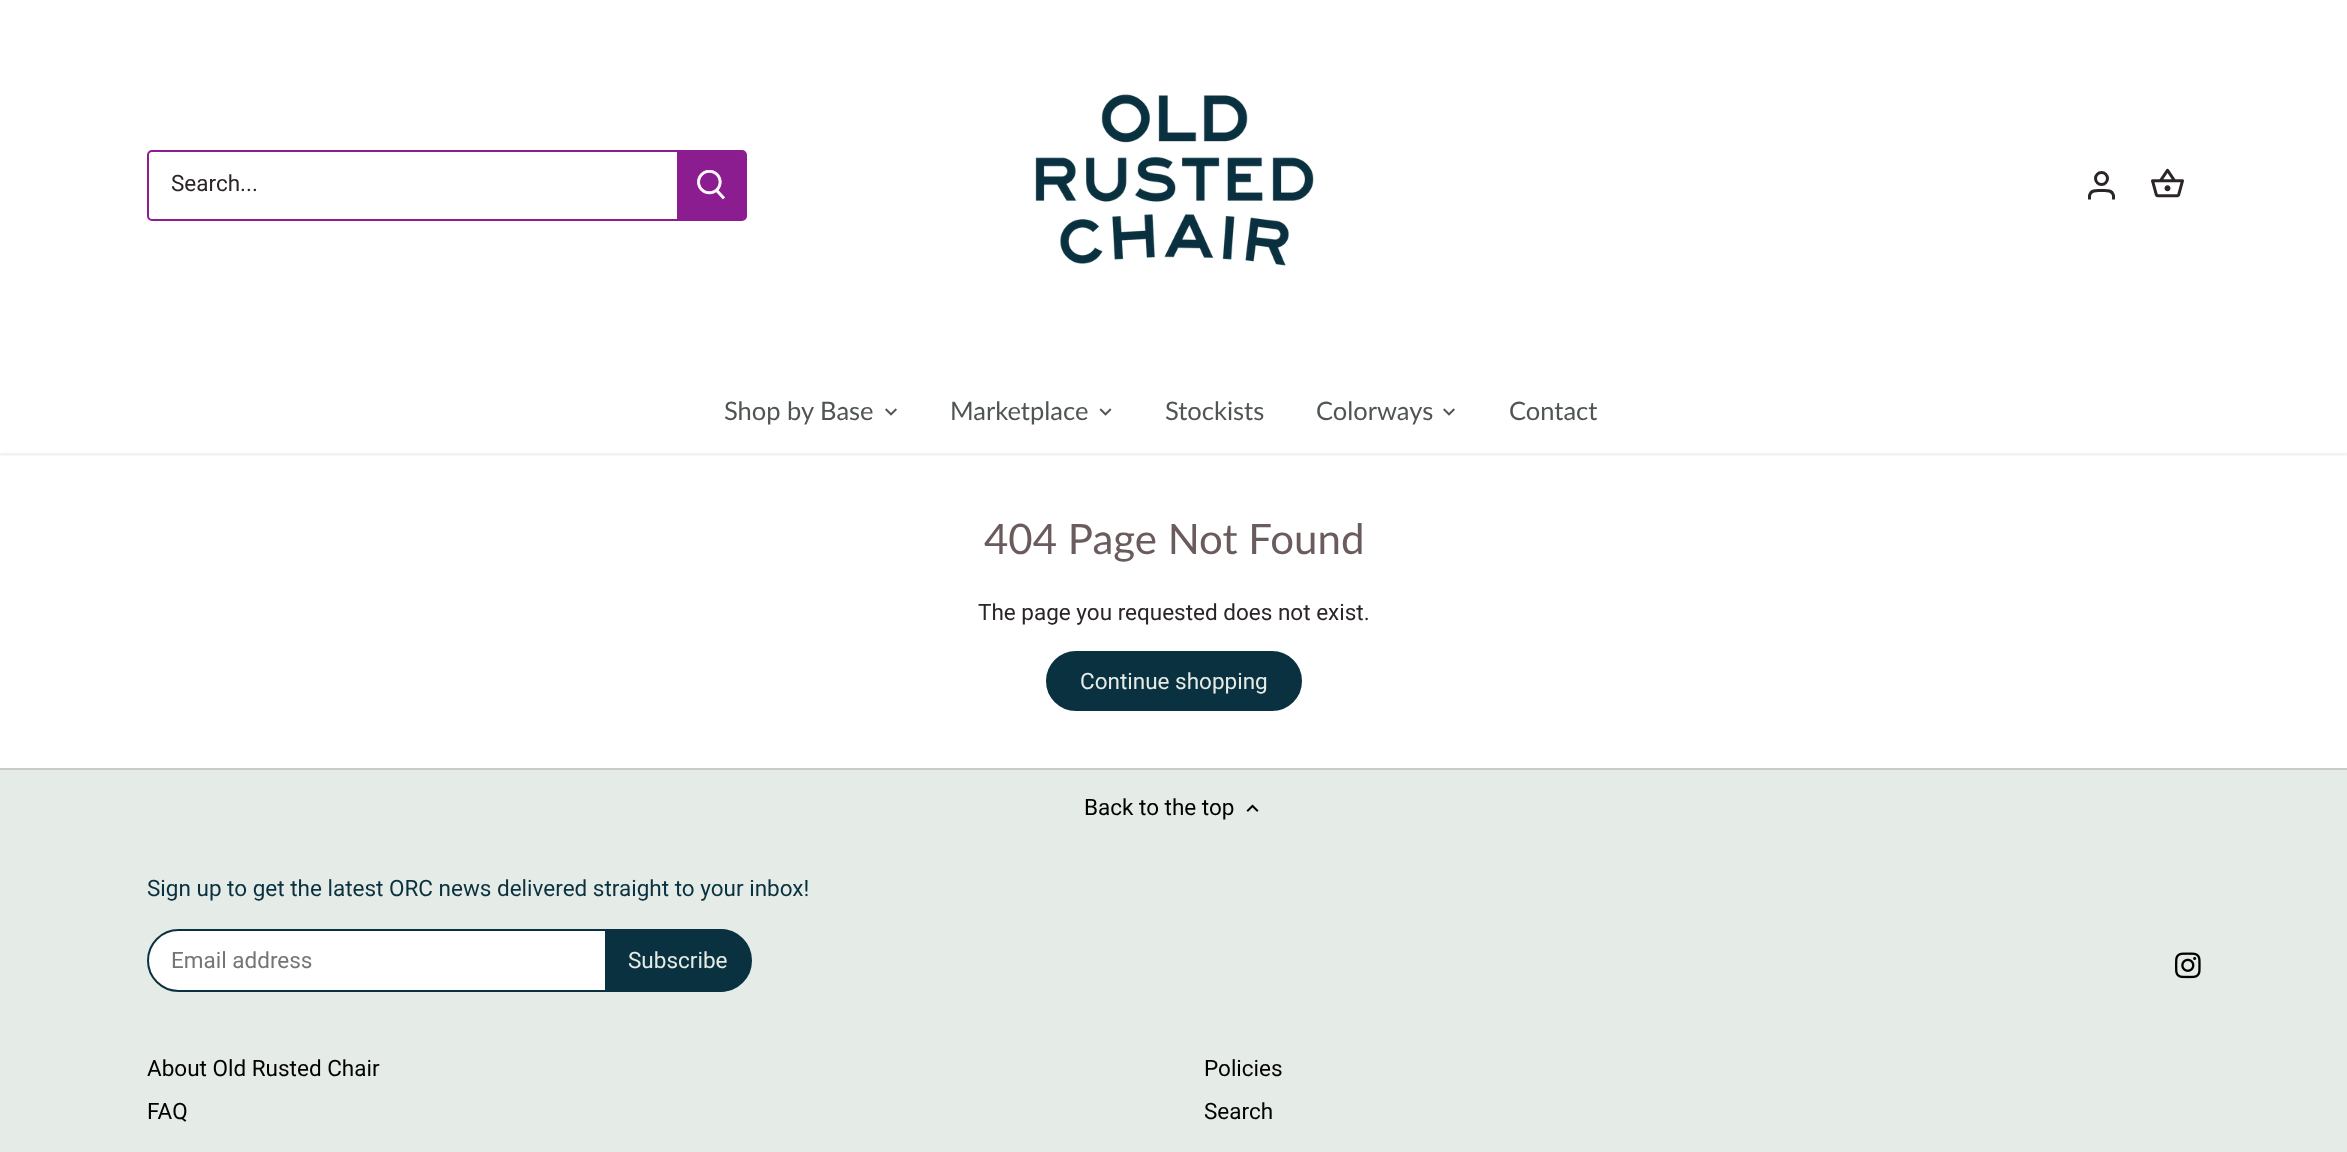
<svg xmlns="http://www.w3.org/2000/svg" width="2347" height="1152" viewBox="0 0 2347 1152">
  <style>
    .t1 { font: 22.5px Roboto; fill: #2c2528; }
    .t2 { font: 25.5px Lato; fill: #4f5454; }
    .t3 { font: 42px Lato; fill: #6a5b5c; }
    .t4 { font: 22.5px Roboto; fill: #e5ebe6; }
    .t5 { font: 22.5px Roboto; fill: #000; }
    .t6 { font: 22.5px Roboto; fill: #0a313f; }
    .t7 { font: 22.5px Roboto; fill: #757575; }
  </style>
  <defs>
    <clipPath id="clip1"><rect x="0" y="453" width="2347" height="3"/></clipPath>
  </defs>
  <rect width="100%" height="100%" fill="#e5ebe6"/>
  <rect x="0" y="0" width="2347" height="768" fill="#fff"/>
  <g clip-path="url(#clip1)">
    <rect x="-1" y="-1" width="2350" height="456" fill="#00000014" filter="blur(2px)"/>
  </g>
  <rect x="148" y="151" width="598" height="69" rx="4" fill="none" stroke="#8b1d90" stroke-width="2"/>
  <path d="M154 152H678V219H154C151 219 149 217 149 214V157C149 154 151 152 154 152Z" fill="#fff"/>
  <text x="171" y="191" class="t1">Search...</text>
  <path d="M677 152H743C744.5 152 746 153.5 746 155V216C746 217.5 744.5 219 743 219H677Z" fill="#8b1d90"/>
  <image x="697" y="170" width="28" height="30" href="images/1.png"/>
  <image x="1035" y="94" width="279" height="172" href="images/2.png"/>
  <circle cx="2101.5" cy="178.5" r="6" fill="none" stroke="#2c2528" stroke-width="3"/>
  <path d="M2113.5 199.5V195.5C2112 189.5 2106 190.5 2101.5 190.5C2097 190.5 2091 189.5 2089.5 195.5V199.5" fill="none" stroke="#2c2528" stroke-width="3"/>
  <image x="2151" y="168" width="33" height="30" href="images/3.png"/>
  <text x="724" y="420" class="t2">Shop by Base</text>
  <image x="885" y="408" width="12" height="8" href="images/4.png"/>
  <text x="950" y="420" class="t2">Marketplace</text>
  <image x="1099" y="408" width="13" height="8" href="images/5.png"/>
  <text x="1165" y="420" class="t2">Stockists</text>
  <text x="1316" y="420" class="t2">Colorways</text>
  <image x="1443" y="408" width="12" height="8" href="images/4.png"/>
  <text x="1509" y="420" class="t2">Contact</text>
  <text x="984" y="554" class="t3">404 Page Not Found</text>
  <text x="978" y="620" class="t1">The page you requested does not exist.</text>
  <rect x="1047.5" y="652.5" width="253" height="57" rx="28.5" fill="#0a313f" stroke="#0a313f" stroke-width="3"/>
  <text x="1080" y="689" class="t4">Continue shopping</text>
  <rect x="0" y="768" width="2347" height="2" fill="#cbcbcb"/>
  <text x="1084" y="815" class="t5">Back to the top</text>
  <image x="1246" y="804" width="13" height="8" href="images/6.png"/>
  <text x="147" y="896" class="t6">Sign up to get the latest ORC news delivered straight to your inbox!</text>
  <rect x="148" y="930" width="601" height="61" rx="30.5" fill="#fff" stroke="#0a313f" stroke-width="2"/>
  <text x="171" y="968" class="t7">Email address</text>
  <path d="M606 930H720.5C737.5 930 751 943.5 751 960.5C751 977.5 737.5 991 720.5 991H606Z" fill="#0a313f" stroke="#0a313f" stroke-width="2"/>
  <text x="628" y="968" class="t4">Subscribe</text>
  <image x="2175" y="952" width="26" height="27" href="images/7.png"/>
  <text x="147" y="1076" class="t5">About Old Rusted Chair</text>
  <text x="147" y="1119" class="t5">FAQ</text>
  <text x="1204" y="1076" class="t5">Policies</text>
  <text x="1204" y="1119" class="t5">Search</text>
</svg>
